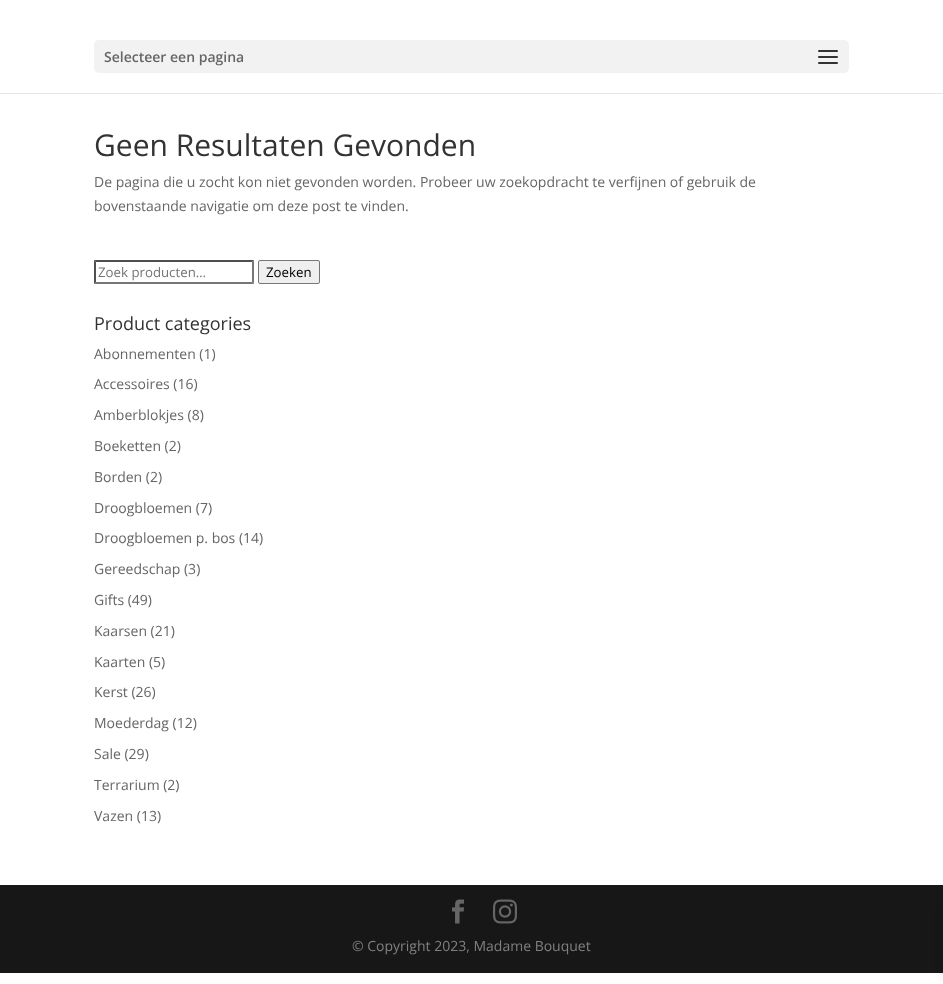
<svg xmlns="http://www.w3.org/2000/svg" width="943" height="984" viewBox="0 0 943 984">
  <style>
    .t1 { font: 600 14px Open Sans; fill: #666; }
    .t2 { font: 30px Open Sans; fill: #333; }
    .t3 { font: 14px Open Sans; fill: #666; }
    .t4 { font: 13.25px Open Sans; fill: #757575; }
    .t5 { font: 13.25px Open Sans; fill: #000; }
    .t6 { font: 18px Open Sans; fill: #333; }
    .t7 { font: 14px Open Sans; fill: #808080; }
  </style>
  <rect width="100%" height="100%" fill="#fff"/>
  <rect x="0" y="93" width="943" height="1" fill="#e6e6e6"/>
  <rect x="94" y="40" width="755" height="33" rx="5" fill="#f2f2f2"/>
  <text x="104" y="62" class="t1">Selecteer een pagina</text>
  <image x="818" y="50" width="20" height="14" href="images/1.png"/>
  <text x="94" y="156" class="t2">Geen Resultaten Gevonden</text>
  <text x="94" y="187" class="t3">De pagina die u zocht kon niet gevonden worden. Probeer uw zoekopdracht te verfijnen of gebruik de</text>
  <text x="94" y="211" class="t3">bovenstaande navigatie om deze post te vinden.</text>
  <path d="M94 260H254L252 262H96Z" fill="#4f4f4f"/>
  <path d="M254 260V284L252 282V262Z" fill="#767676"/>
  <path d="M254 284H94L96 282H252Z" fill="#767676"/>
  <path d="M94 284V260L96 262V282Z" fill="#4f4f4f"/>
  <text x="98" y="277" class="t4">Zoek producten…</text>
  <rect x="258.5" y="260.5" width="61" height="23" rx="1.5" fill="#efefef" stroke="#767676"/>
  <text x="266" y="277" class="t5">Zoeken</text>
  <text x="94" y="330" class="t6">Product categories</text>
  <text x="94" y="359" class="t3">Abonnementen (1)</text>
  <text x="94" y="389" class="t3">Accessoires (16)</text>
  <text x="94" y="420" class="t3">Amberblokjes (8)</text>
  <text x="94" y="451" class="t3">Boeketten (2)</text>
  <text x="94" y="482" class="t3">Borden (2)</text>
  <text x="94" y="513" class="t3">Droogbloemen (7)</text>
  <text x="94" y="543" class="t3">Droogbloemen p. bos (14)</text>
  <text x="94" y="574" class="t3">Gereedschap (3)</text>
  <text x="94" y="605" class="t3">Gifts (49)</text>
  <text x="94" y="636" class="t3">Kaarsen (21)</text>
  <text x="94" y="667" class="t3">Kaarten (5)</text>
  <text x="94" y="697" class="t3">Kerst (26)</text>
  <text x="94" y="728" class="t3">Moederdag (12)</text>
  <text x="94" y="759" class="t3">Sale (29)</text>
  <text x="94" y="790" class="t3">Terrarium (2)</text>
  <text x="94" y="821" class="t3">Vazen (13)</text>
  <rect x="0" y="885" width="943" height="88" fill="#171717"/>
  <image x="452" y="899" width="12" height="25" href="images/2.png"/>
  <image x="493" y="899" width="24" height="25" href="images/3.png"/>
  <text x="352" y="951" class="t7">© Copyright 2023, Madame Bouquet</text>
  <rect x="943" y="911" width="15" height="68" fill="#0000001a" filter="blur(5px)"/>
</svg>
